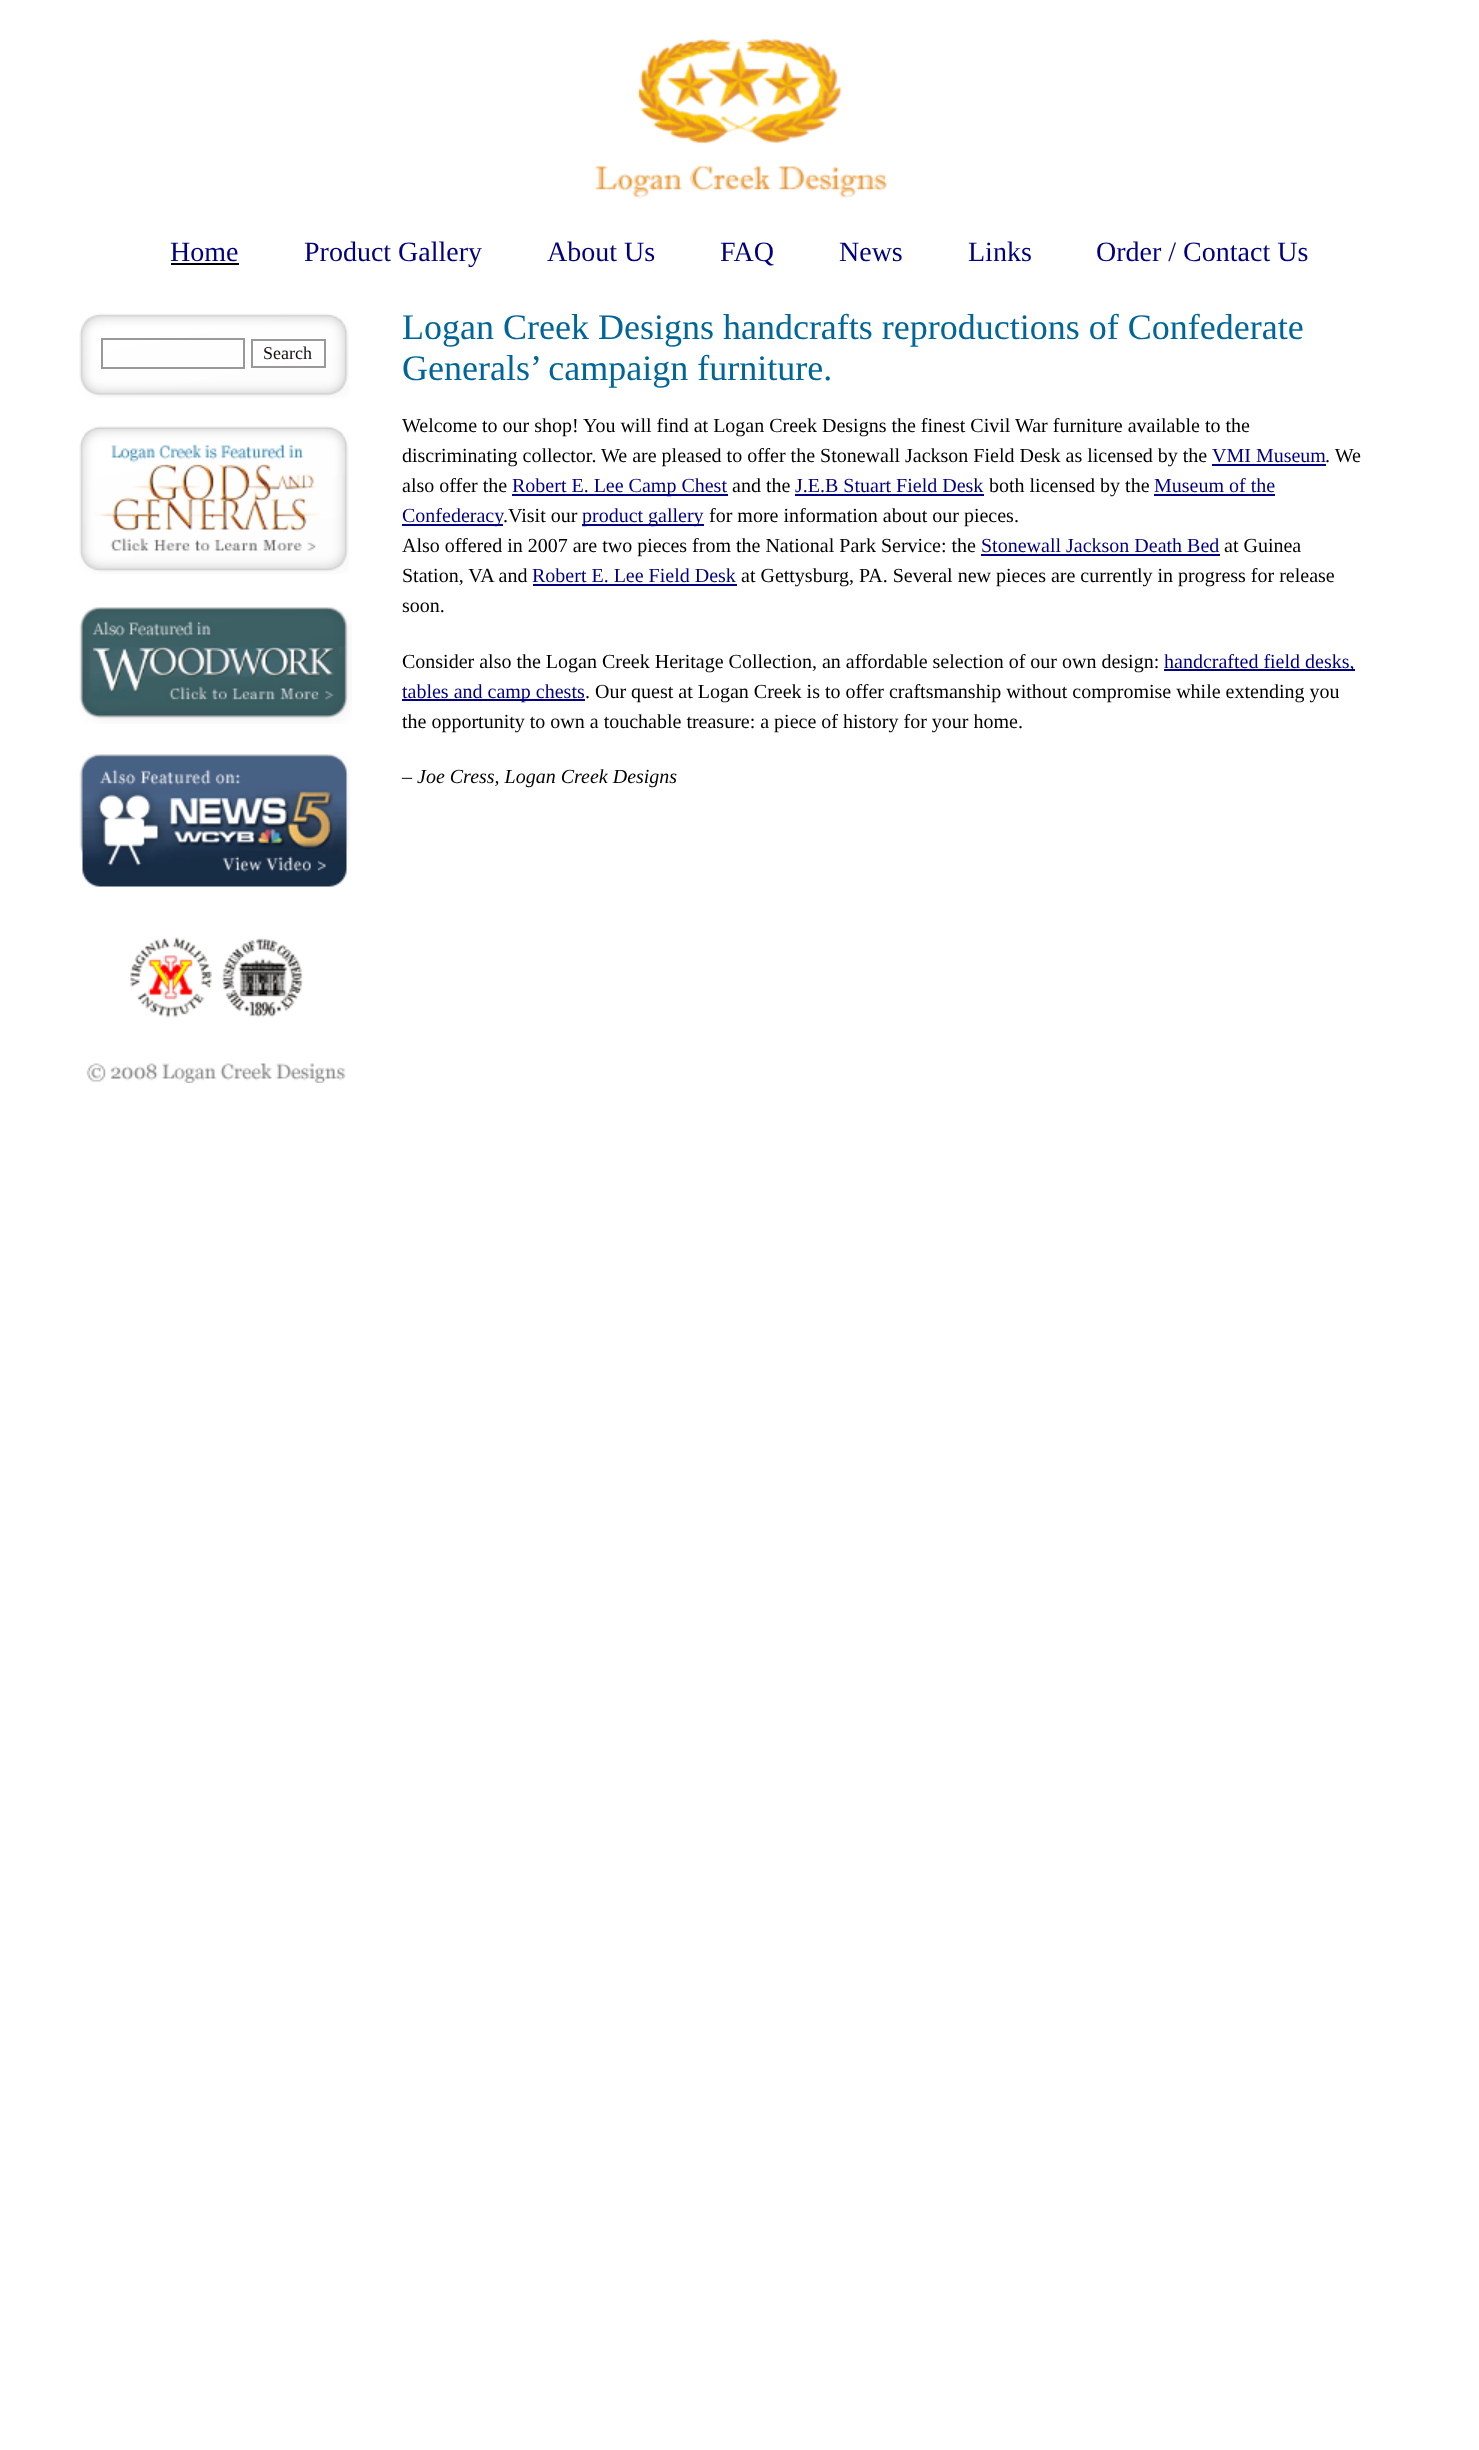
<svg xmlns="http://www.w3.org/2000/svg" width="1479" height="2450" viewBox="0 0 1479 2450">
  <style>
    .t1 { font: 28px Liberation Serif; fill: #000080; }
    .t2 { font: 18px Liberation Serif; fill: #130f0b; }
    .t3 { font: 36px Liberation Serif; fill: #069; }
    .t4 { font: 20px Liberation Serif; fill: #000; }
    .t5 { font: 20px Liberation Serif; fill: #000080; }
    .t6 { font: italic 20px Liberation Serif; fill: #000; }
  </style>
  <rect width="100%" height="100%" fill="#fff"/>
  <image x="595" y="38" width="292" height="161" href="images/1.png"/>
  <text x="170" y="261" class="t1">Home</text>
  <rect x="171" y="263" width="68" height="2" fill="#000"/>
  <text x="304" y="261" class="t1">Product Gallery</text>
  <text x="547" y="261" class="t1">About Us</text>
  <text x="720" y="261" class="t1">FAQ</text>
  <text x="839" y="261" class="t1">News</text>
  <text x="968" y="261" class="t1">Links</text>
  <text x="1096" y="261" class="t1">Order / Contact Us</text>
  <image x="79" y="313" width="270" height="85" href="images/2.png"/>
  <rect x="102" y="339" width="142" height="29" fill="none" stroke="#999" stroke-width="2"/>
  <rect x="252" y="340" width="73" height="27" fill="none" stroke="#999" stroke-width="2"/>
  <text x="263" y="359" class="t2">Search</text>
  <image x="79" y="426" width="270" height="148" href="images/3.png"/>
  <image x="79" y="607" width="273" height="117" href="images/4.png"/>
  <image x="79" y="754" width="271" height="133" href="images/5.png"/>
  <image x="130" y="937" width="82" height="81" href="images/6.png"/>
  <image x="222" y="938" width="81" height="80" href="images/7.png"/>
  <text x="402" y="339" class="t3">Logan Creek Designs handcrafts reproductions of Confederate</text>
  <text x="402" y="380" class="t3">Generals’ campaign furniture.</text>
  <text x="402" y="432" class="t4">Welcome to our shop! You will find at Logan Creek Designs the finest Civil War furniture available to the</text>
  <text x="402" y="462" class="t4">discriminating collector. We are pleased to offer the Stonewall Jackson Field Desk as licensed by the</text>
  <text x="1212" y="462" class="t5">VMI Museum</text>
  <rect x="1212" y="464" width="114" height="2" fill="#000080"/>
  <text x="1325" y="462" class="t4">. We</text>
  <text x="402" y="492" class="t4">also offer the</text>
  <rect x="512" y="494" width="216" height="2" fill="#000080"/>
  <text x="512" y="492" class="t5">Robert E. Lee Camp Chest</text>
  <text x="732" y="492" class="t4">and the</text>
  <text x="795" y="492" class="t5">J.E.B Stuart Field Desk</text>
  <rect x="795" y="494" width="189" height="2" fill="#000080"/>
  <text x="989" y="492" class="t4">both licensed by the</text>
  <text x="1154" y="492" class="t5">Museum of the</text>
  <rect x="1154" y="494" width="121" height="2" fill="#000080"/>
  <rect x="402" y="524" width="101" height="2" fill="#000080"/>
  <text x="402" y="522" class="t5">Confederacy</text>
  <text x="503" y="522" class="t4">.Visit our</text>
  <rect x="582" y="524" width="122" height="2" fill="#000080"/>
  <text x="582" y="522" class="t5">product gallery</text>
  <text x="709" y="522" class="t4">for more information about our pieces.</text>
  <text x="402" y="552" class="t4">Also offered in 2007 are two pieces from the National Park Service: the</text>
  <text x="981" y="552" class="t5">Stonewall Jackson Death Bed</text>
  <rect x="981" y="554" width="239" height="2" fill="#000080"/>
  <text x="1224" y="552" class="t4">at Guinea</text>
  <text x="402" y="582" class="t4">Station, VA and</text>
  <text x="532" y="582" class="t5">Robert E. Lee Field Desk</text>
  <rect x="533" y="584" width="204" height="2" fill="#000080"/>
  <text x="741" y="582" class="t4">at Gettysburg, PA. Several new pieces are currently in progress for release</text>
  <text x="402" y="612" class="t4">soon.</text>
  <text x="402" y="668" class="t4">Consider also the Logan Creek Heritage Collection, an affordable selection of our own design:</text>
  <rect x="1164" y="669" width="191" height="2" fill="#000080"/>
  <text x="1164" y="668" class="t5">handcrafted field desks,</text>
  <rect x="402" y="699" width="183" height="2" fill="#000080"/>
  <text x="402" y="698" class="t5">tables and camp chests</text>
  <text x="585" y="698" class="t4">. Our quest at Logan Creek is to offer craftsmanship without compromise while extending you</text>
  <text x="402" y="728" class="t4">the opportunity to own a touchable treasure: a piece of history for your home.</text>
  <text x="402" y="783" class="t6">– Joe Cress, Logan Creek Designs</text>
  <image x="86" y="1063" width="260" height="20" href="images/8.png"/>
</svg>
